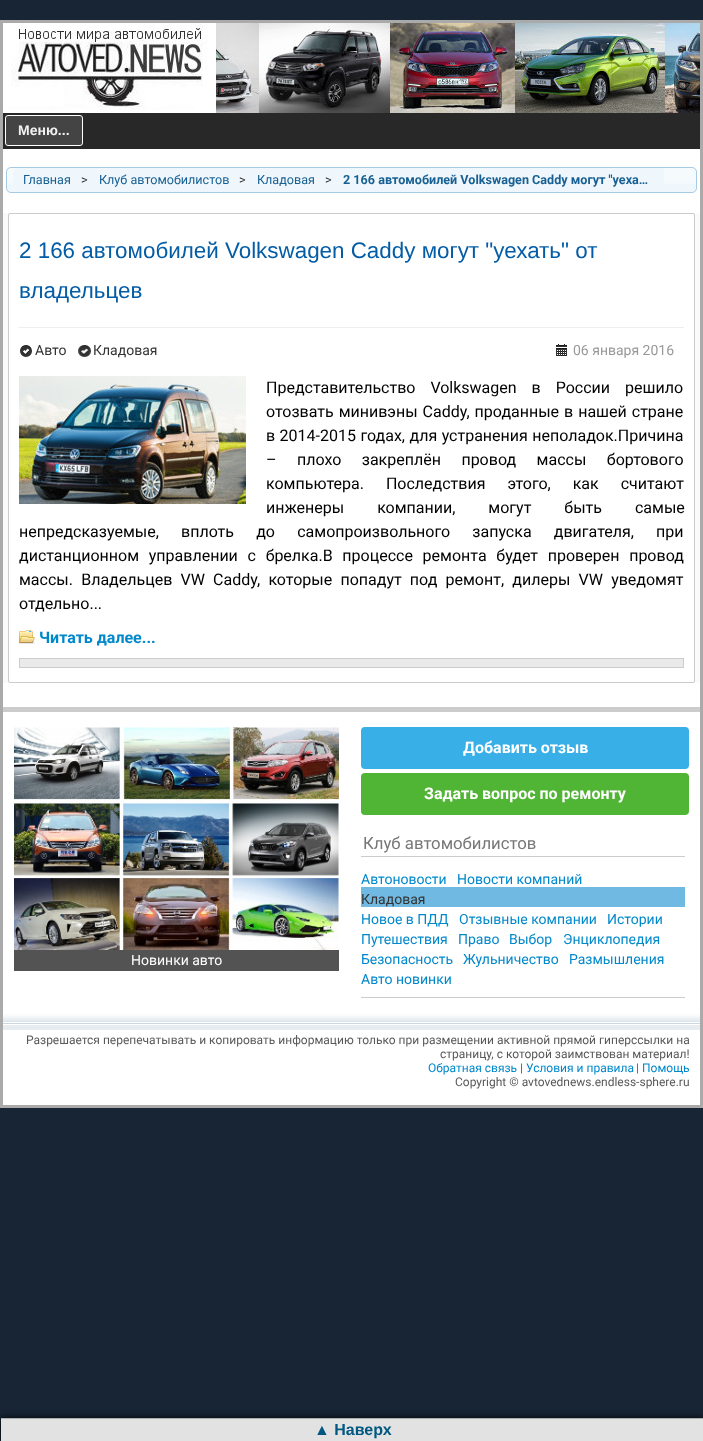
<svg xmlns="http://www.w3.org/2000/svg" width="703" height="1441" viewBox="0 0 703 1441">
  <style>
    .t1 { font: bold 14px Liberation Sans; fill: #f2f2f2; }
    .t2 { font: 12.6px Roboto; fill: #176093; }
    .t3 { font: 12.6px Roboto; fill: #333; }
    .t4 { font: bold 12.6px Roboto; fill: #176093; }
    .t5 { font: 22.4px Liberation Sans; fill: #035ca6; }
    .t6 { font: 14px Roboto; fill: #333; }
    .t7 { font: 14px Roboto; fill: #999; }
    .t8 { font: 16px Roboto; fill: #000; }
    .t9 { font: bold 16px Roboto; fill: #08c; }
    .t10 { font: 14px Roboto; fill: #fff; }
    .t11 { font: bold 16px Roboto; fill: #fff; }
    .t12 { font: 16.75px Roboto; fill: #777; }
    .t13 { font: 14px Roboto; fill: #08c; }
    .t14 { font: 12px Roboto; fill: #595959; }
    .t15 { font: 12px Roboto; fill: #08c; }
    .t16 { font: bold 16px Liberation Sans; fill: #005880; }
  </style>
  <defs>
    <clipPath id="clip1"><rect x="7" y="168" width="689" height="24" rx="4"/></clipPath>
  </defs>
  <rect width="100%" height="100%" fill="#172534"/>
  <rect x="3" y="1030" width="697" height="75" fill="#fff"/>
  <rect x="1.5" y="21.5" width="700" height="1085" fill="none" stroke="#aaa" stroke-width="3"/>
  <image x="216" y="23" width="484" height="90" href="images/1.png"/>
  <image x="3" y="23" width="213" height="90" href="images/2.png"/>
  <rect x="3" y="113" width="697" height="36" fill="#282828"/>
  <rect x="5.5" y="115.5" width="77" height="30" rx="2.5" fill="#444" stroke="#fff"/>
  <text x="18" y="135" class="t1">Меню...</text>
  <rect x="3" y="149" width="697" height="864" fill="#fff"/>
  <rect x="3" y="707" width="697" height="5" fill="#ccc"/>
  <rect x="6" y="167" width="691" height="26" rx="5" fill="#f0f7fc"/>
  <image x="6" y="168" width="691" height="16" href="images/3.png"/>
  <rect x="6.5" y="167.5" width="690" height="25" rx="4.5" fill="none" stroke="#a5cae4"/>
  <g clip-path="url(#clip1)">
    <path d="M18 168H81V193H18C15 193 13 191 13 188V173C13 170 15 168 18 168Z" fill="#f0f7fc"/>
  </g>
  <text x="23" y="184" class="t2">Главная</text>
  <rect x="81" y="168" width="583" height="16" fill="#f0f7fc"/>
  <text x="81" y="184" class="t3">&gt;</text>
  <text x="99" y="184" class="t2">Клуб автомобилистов</text>
  <text x="239" y="184" class="t3">&gt;</text>
  <text x="257" y="184" class="t2">Кладовая</text>
  <text x="325" y="184" class="t3">&gt;</text>
  <text x="343" y="184" class="t4">2 166 автомобилей Volkswagen Caddy могут "уеха…</text>
  <rect x="3" y="213" width="697" height="470" fill="#fafafa"/>
  <rect x="8.5" y="213.5" width="686" height="469" rx="1.5" fill="#fff" stroke="#ccc"/>
  <rect x="19" y="327" width="665" height="1" fill="#eee"/>
  <text x="19" y="258" class="t5">2 166 автомобилей Volkswagen Caddy могут "уехать" от</text>
  <text x="19" y="298" class="t5">владельцев</text>
  <image x="20" y="345" width="12" height="12" href="images/4.png"/>
  <text x="35" y="355" class="t6">Авто</text>
  <image x="78" y="345" width="13" height="12" href="images/5.png"/>
  <text x="93" y="355" class="t6">Кладовая</text>
  <image x="556" y="344" width="11" height="12" href="images/6.png"/>
  <text x="573" y="355" class="t7">06 января 2016</text>
  <image x="19" y="376" width="227" height="128" href="images/7.png"/>
  <text x="266" y="393" word-spacing="11" class="t8">Представительство Volkswagen в России решило</text>
  <text x="266" y="417" word-spacing="1" class="t8">отозвать минивэны Caddy, проданные в нашей стране</text>
  <text x="266" y="441" word-spacing="0.5" class="t8">в 2014-2015 годах, для устранения неполадок.Причина</text>
  <text x="266" y="465" word-spacing="16.5" class="t8">– плохо закреплён провод массы бортового</text>
  <text x="266" y="489" word-spacing="18" class="t8">компьютера. Последствия этого, как считают</text>
  <text x="266" y="513" word-spacing="29" class="t8">инженеры компании, могут быть самые</text>
  <text x="19" y="537" word-spacing="18.25" class="t8">непредсказуемые, вплоть до самопроизвольного запуска двигателя, при</text>
  <text x="19" y="561" word-spacing="5.75" class="t8">дистанционном управлении с брелка.В процессе ремонта будет проверен провод</text>
  <text x="19" y="585" word-spacing="4.25" class="t8">массы. Владельцев VW Caddy, которые попадут под ремонт, дилеры VW уведомят</text>
  <text x="19" y="609" class="t8">отдельно...</text>
  <image x="19" y="630" width="16" height="14" href="images/8.png"/>
  <text x="39" y="643" class="t9">Читать далее...</text>
  <rect x="19.5" y="658.5" width="664" height="9" fill="#eaeaea" stroke="#ccc"/>
  <image x="14" y="727" width="325" height="223" href="images/9.png"/>
  <rect x="14" y="950" width="325" height="21" fill="#535353"/>
  <text x="131" y="965" class="t10">Новинки авто</text>
  <rect x="361" y="727" width="328" height="42" rx="4" fill="#38afe7"/>
  <text x="463" y="753" class="t11">Добавить отзыв</text>
  <rect x="361" y="773" width="328" height="42" rx="4" fill="#50b434"/>
  <text x="424" y="799" class="t11">Задать вопрос по ремонту</text>
  <text x="363" y="849" class="t12">Клуб автомобилистов</text>
  <rect x="361" y="856" width="324" height="1" fill="#ccc"/>
  <rect x="361" y="997" width="324" height="1" fill="#ccc"/>
  <text x="361" y="884" class="t13">Автоновости</text>
  <text x="457" y="884" class="t13">Новости компаний</text>
  <rect x="361" y="887" width="324" height="20" fill="#70b9e2"/>
  <text x="361" y="904" class="t6">Кладовая</text>
  <text x="361" y="924" class="t13">Новое в ПДД</text>
  <text x="459" y="924" class="t13">Отзывные компании</text>
  <text x="607" y="924" class="t13">Истории</text>
  <text x="361" y="944" class="t13">Путешествия</text>
  <text x="458" y="944" class="t13">Право</text>
  <text x="509" y="944" class="t13">Выбор</text>
  <text x="563" y="944" class="t13">Энциклопедия</text>
  <text x="361" y="964" class="t13">Безопасность</text>
  <text x="463" y="964" class="t13">Жульничество</text>
  <text x="569" y="964" class="t13">Размышления</text>
  <text x="361" y="984" class="t13">Авто новинки</text>
  <image x="3" y="1013" width="697" height="17" href="images/10.png"/>
  <text x="26" y="1044" class="t14">Разрешается перепечатывать и копировать информацию только при размещении активной прямой гиперссылки на</text>
  <text x="440" y="1058" class="t14">страницу, с которой заимствован материал!</text>
  <text x="428" y="1072" class="t15">Обратная связь</text>
  <text x="520" y="1072" class="t14">|</text>
  <text x="526" y="1072" class="t15">Условия и правила</text>
  <text x="636" y="1072" class="t14">|</text>
  <text x="642" y="1072" class="t15">Помощь</text>
  <text x="455" y="1086" class="t14">Copyright © avtovednews.endless-sphere.ru</text>
  <rect x="1" y="1419" width="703" height="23" fill="#000" filter="blur(4px)"/>
  <rect x="1" y="1419" width="702" height="22" fill="#e2e2e2"/>
  <rect x="1" y="1418" width="702" height="1" fill="#aeaeae"/>
  <text x="314" y="1435" class="t16">▲ Наверх</text>
</svg>
